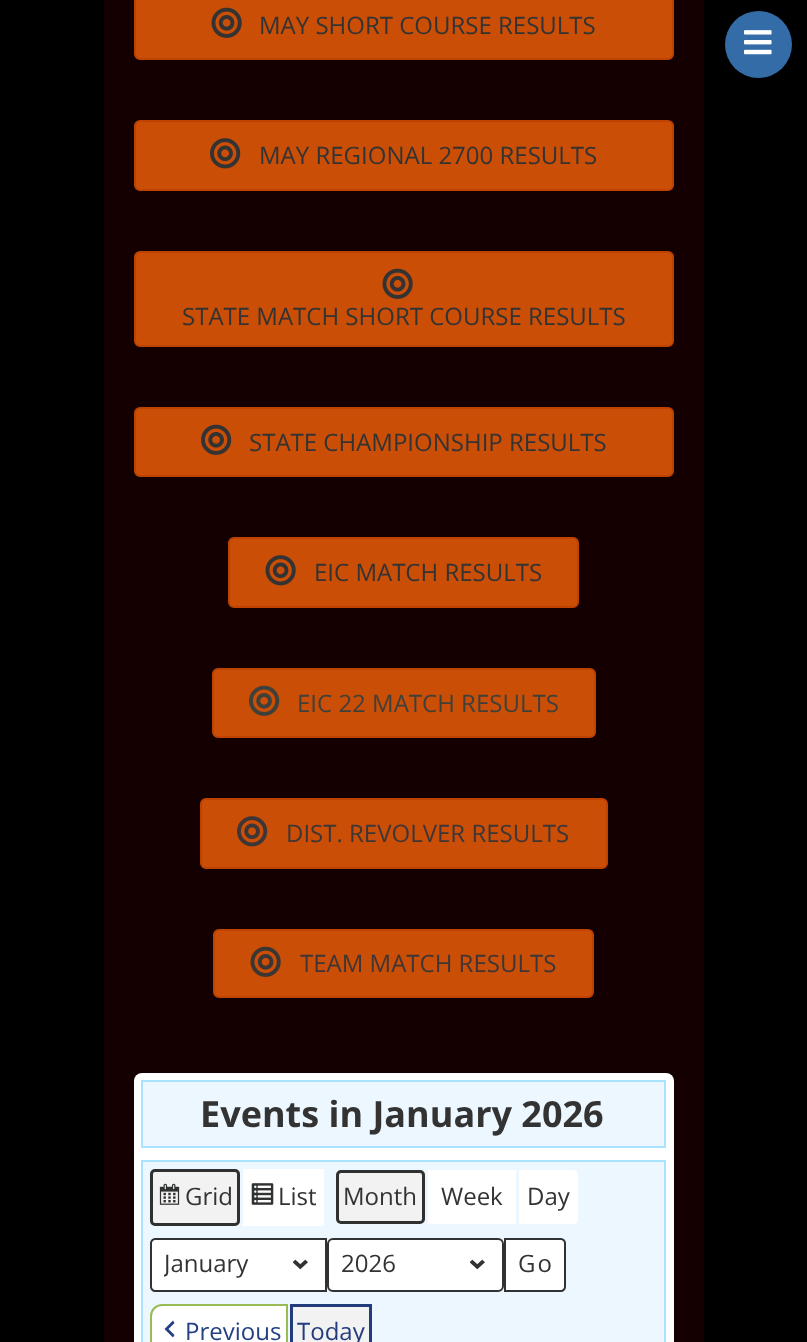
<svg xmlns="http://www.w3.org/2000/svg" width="807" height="1342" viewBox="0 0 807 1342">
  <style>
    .t1 { font: 24px Open Sans; fill: #333; }
    .t2 { font: 24px Open Sans; fill: #40403a; }
    .t3 { font: 24px Open Sans; fill: #3e3636; }
    .t4 { font: bold 36px Open Sans; fill: #333; }
    .t5 { font: 24px Open Sans; letter-spacing: 2px; fill: #333; }
    .t6 { font: 24px Open Sans; fill: #243f82; }
    .t7 { font: 24px Open Sans; fill: #223c7c; }
  </style>
  <defs>
    <clipPath id="clip1"><rect x="164" y="1245" width="90" height="39"/></clipPath>
  </defs>
  <rect width="100%" height="100%" fill="#000"/>
  <rect x="104" y="0" width="600" height="1342" fill="#140000"/>
  <rect x="135" y="-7" width="538" height="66" rx="5" fill="#ca4e06" stroke="#be4200" stroke-width="2"/>
  <image x="211" y="7" width="31" height="31" href="images/1.png"/>
  <text x="259" y="34" class="t1">MAY SHORT COURSE RESULTS</text>
  <rect x="135" y="121" width="538" height="69" rx="5" fill="#ca4e06" stroke="#be4200" stroke-width="2"/>
  <image x="210" y="138" width="31" height="31" href="images/2.png"/>
  <text x="259" y="164" class="t1">MAY REGIONAL 2700 RESULTS</text>
  <rect x="135" y="252" width="538" height="94" rx="5" fill="#ca4e06" stroke="#be4200" stroke-width="2"/>
  <image x="382" y="268" width="31" height="31" href="images/1.png"/>
  <text x="182" y="325" class="t1">STATE MATCH SHORT COURSE RESULTS</text>
  <rect x="135" y="408" width="538" height="68" rx="5" fill="#ca4e06" stroke="#be4200" stroke-width="2"/>
  <image x="201" y="424" width="31" height="31" href="images/3.png"/>
  <text x="249" y="451" class="t1">STATE CHAMPIONSHIP RESULTS</text>
  <rect x="229" y="538" width="349" height="69" rx="5" fill="#ca4e06" stroke="#be4200" stroke-width="2"/>
  <image x="265" y="555" width="31" height="31" href="images/4.png"/>
  <text x="314" y="581" class="t1">EIC MATCH RESULTS</text>
  <rect x="213" y="669" width="382" height="68" rx="5" fill="#ca4e06" stroke="#be4200" stroke-width="2"/>
  <image x="249" y="685" width="31" height="31" href="images/5.png"/>
  <text x="297" y="712" class="t2">EIC 22 MATCH RESULTS</text>
  <rect x="201" y="799" width="406" height="69" rx="5" fill="#ca4e06" stroke="#be4200" stroke-width="2"/>
  <image x="237" y="816" width="31" height="31" href="images/6.png"/>
  <text x="286" y="842" class="t3">DIST. REVOLVER RESULTS</text>
  <rect x="214" y="930" width="379" height="67" rx="5" fill="#ca4e06" stroke="#be4200" stroke-width="2"/>
  <image x="250" y="946" width="31" height="31" href="images/7.png"/>
  <text x="300" y="972" class="t3">TEAM MATCH RESULTS</text>
  <rect x="134" y="1073" width="540" height="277" rx="8" fill="#fff"/>
  <rect x="142" y="1081" width="523" height="66" fill="#edf7ff" stroke="#a9e3ff" stroke-width="2"/>
  <text x="200" y="1127" class="t4">Events in January 2026</text>
  <rect x="142" y="1161" width="523" height="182" fill="#edf7ff" stroke="#a9e3ff" stroke-width="2"/>
  <rect x="150" y="1169" width="90" height="57" rx="5" fill="#f2f2f2"/>
  <image x="159" y="1183" width="21" height="22" href="images/8.png"/>
  <rect x="151.5" y="1170.5" width="87" height="54" rx="3.5" fill="none" stroke="#2f3030" stroke-width="3"/>
  <text x="185" y="1205" class="t1">Grid</text>
  <rect x="243" y="1169" width="81" height="57" fill="#fff"/>
  <image x="251" y="1183" width="23" height="22" href="images/9.png"/>
  <text x="278" y="1205" class="t1">List</text>
  <rect x="336" y="1170" width="89" height="54" rx="5" fill="#f2f2f2"/>
  <rect x="337.5" y="1171.5" width="86" height="51" rx="3.5" fill="none" stroke="#2f3030" stroke-width="3"/>
  <text x="343" y="1205" class="t1">Month</text>
  <rect x="428" y="1170" width="88" height="54" fill="#fff"/>
  <text x="441" y="1205" class="t1">Week</text>
  <path d="M519 1170H573C576 1170 578 1172 578 1175V1219C578 1222 576 1224 573 1224H519Z" fill="#fff"/>
  <text x="527" y="1205" class="t1">Day</text>
  <path d="M155 1239H326V1290H155C153.5 1290 152 1288.5 152 1287V1242C152 1240.5 153.5 1239 155 1239Z" fill="#fff"/>
  <image x="293" y="1259" width="15" height="11" href="images/10.png"/>
  <path d="M155 1239H326V1291H155C153 1291 151 1289 151 1287V1243C151 1241 153 1239 155 1239Z" fill="none" stroke="#313233" stroke-width="2"/>
  <g clip-path="url(#clip1)">
    <text x="164" y="1272" class="t1">January</text>
  </g>
  <rect x="329" y="1239" width="174" height="51" rx="5" fill="#fff"/>
  <image x="470" y="1259" width="15" height="11" href="images/10.png"/>
  <rect x="328" y="1239" width="175" height="52" rx="5" fill="none" stroke="#313233" stroke-width="2"/>
  <text x="341" y="1272" class="t1">2026</text>
  <path d="M505 1239H561C563 1239 565 1241 565 1243V1287C565 1289 563 1291 561 1291H505Z" fill="#fff" stroke="#313233" stroke-width="2"/>
  <text x="518" y="1272" class="t5">Go</text>
  <path d="M162 1305H287V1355H162C156 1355 151 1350 151 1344V1316C151 1310 156 1305 162 1305Z" fill="#fff" stroke="#9b5" stroke-width="2"/>
  <path d="M174.5 1323L168.5 1329L174.5 1335L173 1337.5L164.5 1329L173 1320.5Z" fill="#243f82"/>
  <text x="185" y="1340" class="t6">Previous</text>
  <rect x="293" y="1307" width="76" height="35" fill="#f2f2f2"/>
  <rect x="291.5" y="1305.5" width="79" height="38" fill="none" stroke="#223c7c" stroke-width="3"/>
  <text x="297" y="1340" class="t7">Today</text>
  <circle cx="758.5" cy="44.5" r="33.5" fill="#336ca6"/>
  <image x="744" y="30" width="28" height="25" href="images/11.png"/>
</svg>
